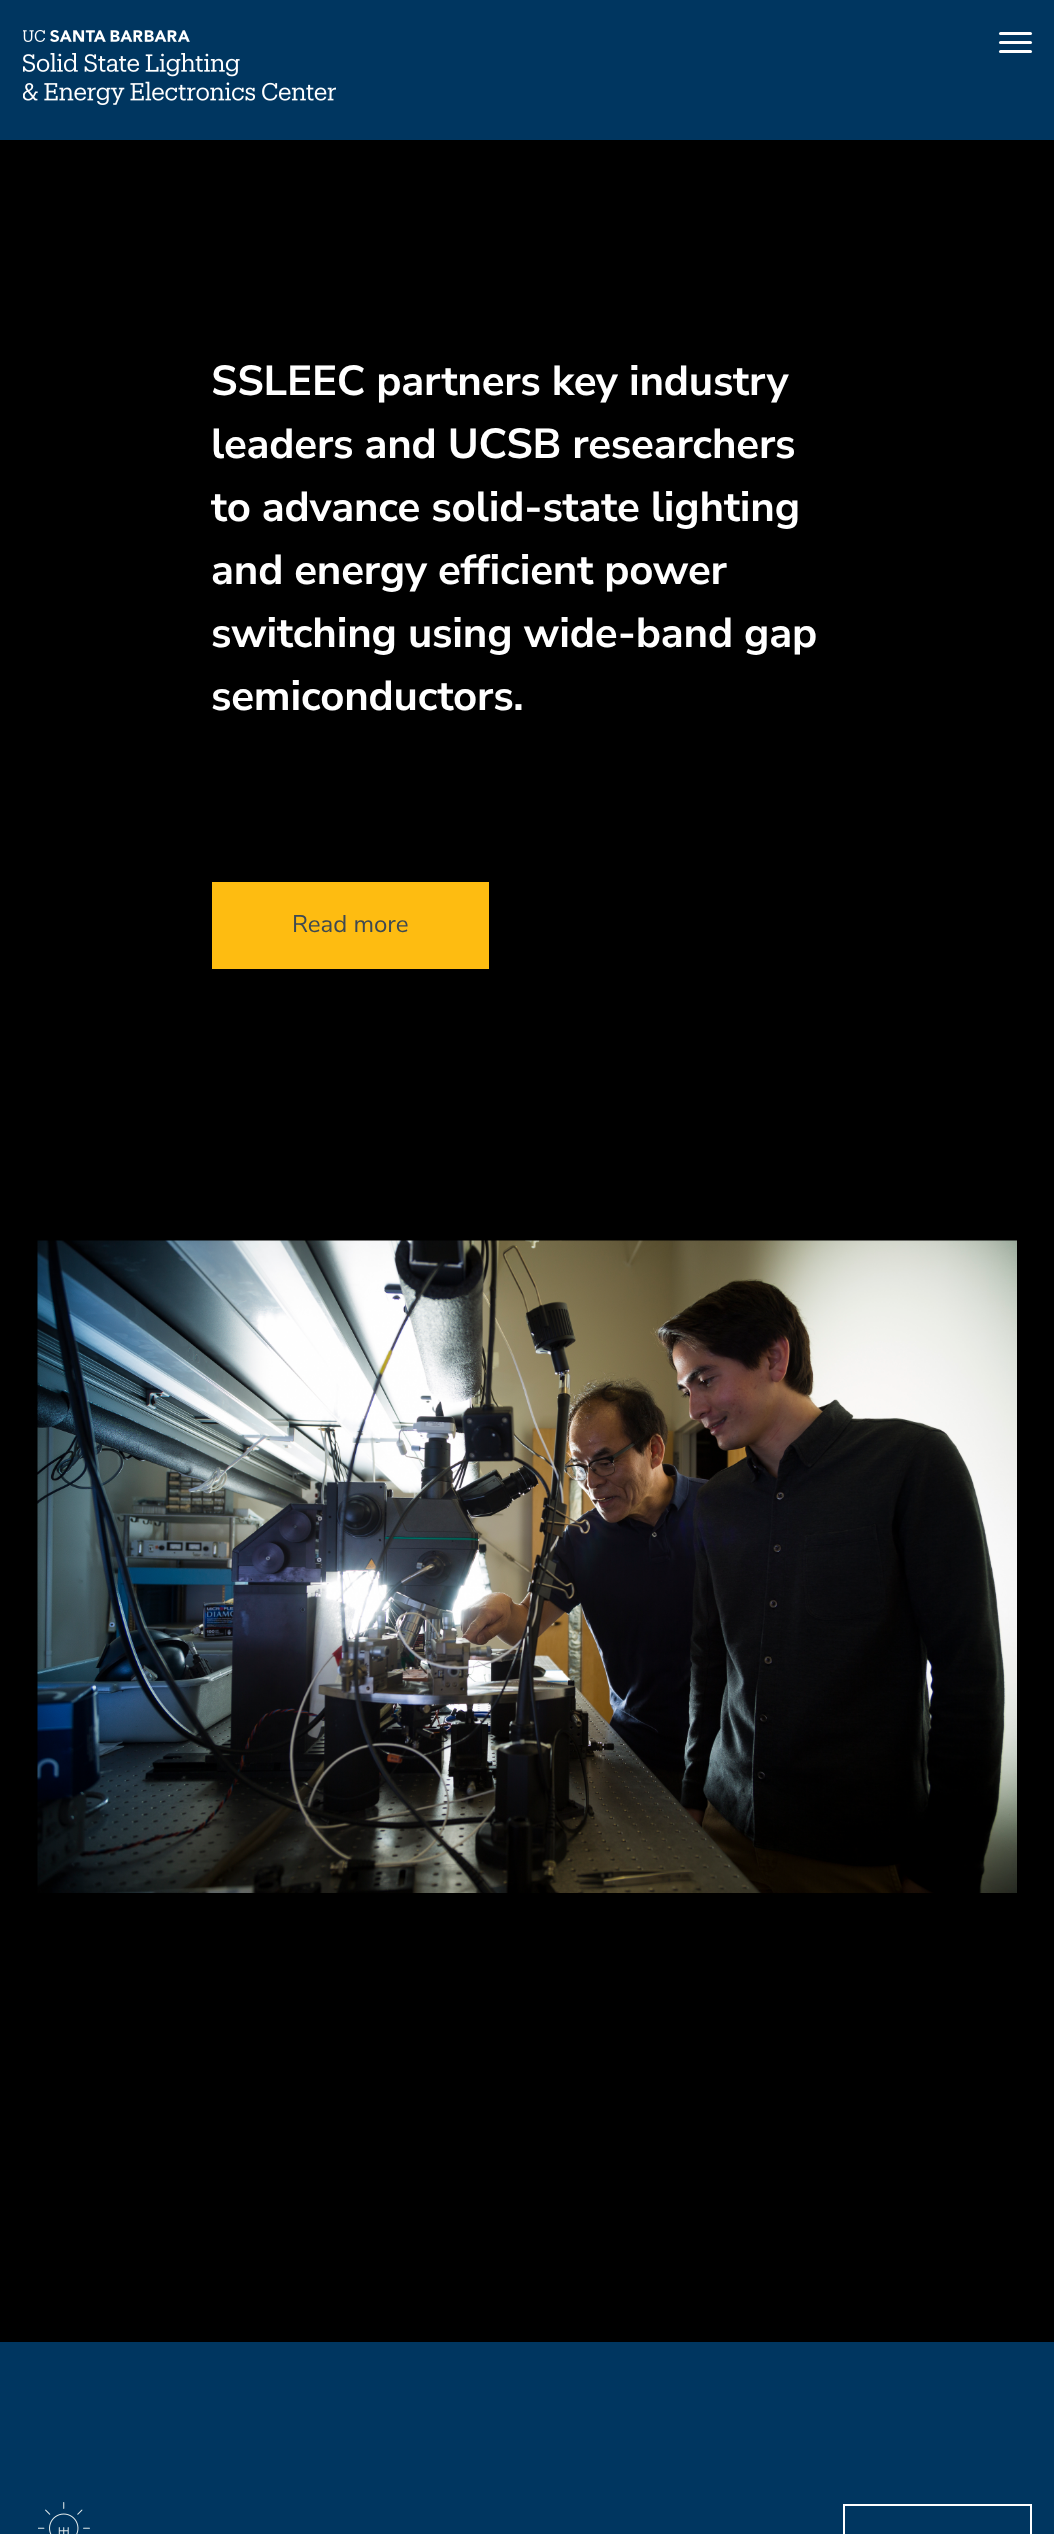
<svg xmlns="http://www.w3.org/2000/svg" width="1054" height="2534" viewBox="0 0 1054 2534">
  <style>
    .t1 { font: bold 42px Nunito Sans; letter-spacing: -0.2px; fill: #fff; }
    .t2 { font: 24px Nunito Sans; fill: #3d4952; }
  </style>
  <rect width="100%" height="100%" fill="#000"/>
  <rect x="0" y="0" width="1054" height="140" fill="#003660"/>
  <image x="23" y="30" width="313" height="75" href="images/1.png"/>
  <rect x="999" y="32" width="33" height="3" rx="1.5" fill="#fff"/>
  <rect x="999" y="41" width="33" height="3" rx="1.5" fill="#fff"/>
  <rect x="999" y="50" width="33" height="3" rx="1.5" fill="#fff"/>
  <text x="211" y="395" class="t1">SSLEEC partners key industry</text>
  <text x="211" y="458" class="t1">leaders and UCSB researchers</text>
  <text x="211" y="521" class="t1">to advance solid-state lighting</text>
  <text x="211" y="584" class="t1">and energy efficient power</text>
  <text x="211" y="647" class="t1">switching using wide-band gap</text>
  <text x="211" y="710" class="t1">semiconductors.</text>
  <rect x="212" y="882" width="277" height="87" fill="#febc11"/>
  <text x="292" y="932" class="t2">Read more</text>
  <image x="37" y="1240" width="980" height="653" href="images/2.png"/>
  <rect x="0" y="2342" width="1054" height="192" fill="#003660"/>
  <image x="38" y="2502" width="52" height="32" href="images/3.png"/>
  <rect x="844" y="2505" width="187" height="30" fill="none" stroke="#fff" stroke-width="2"/>
</svg>
